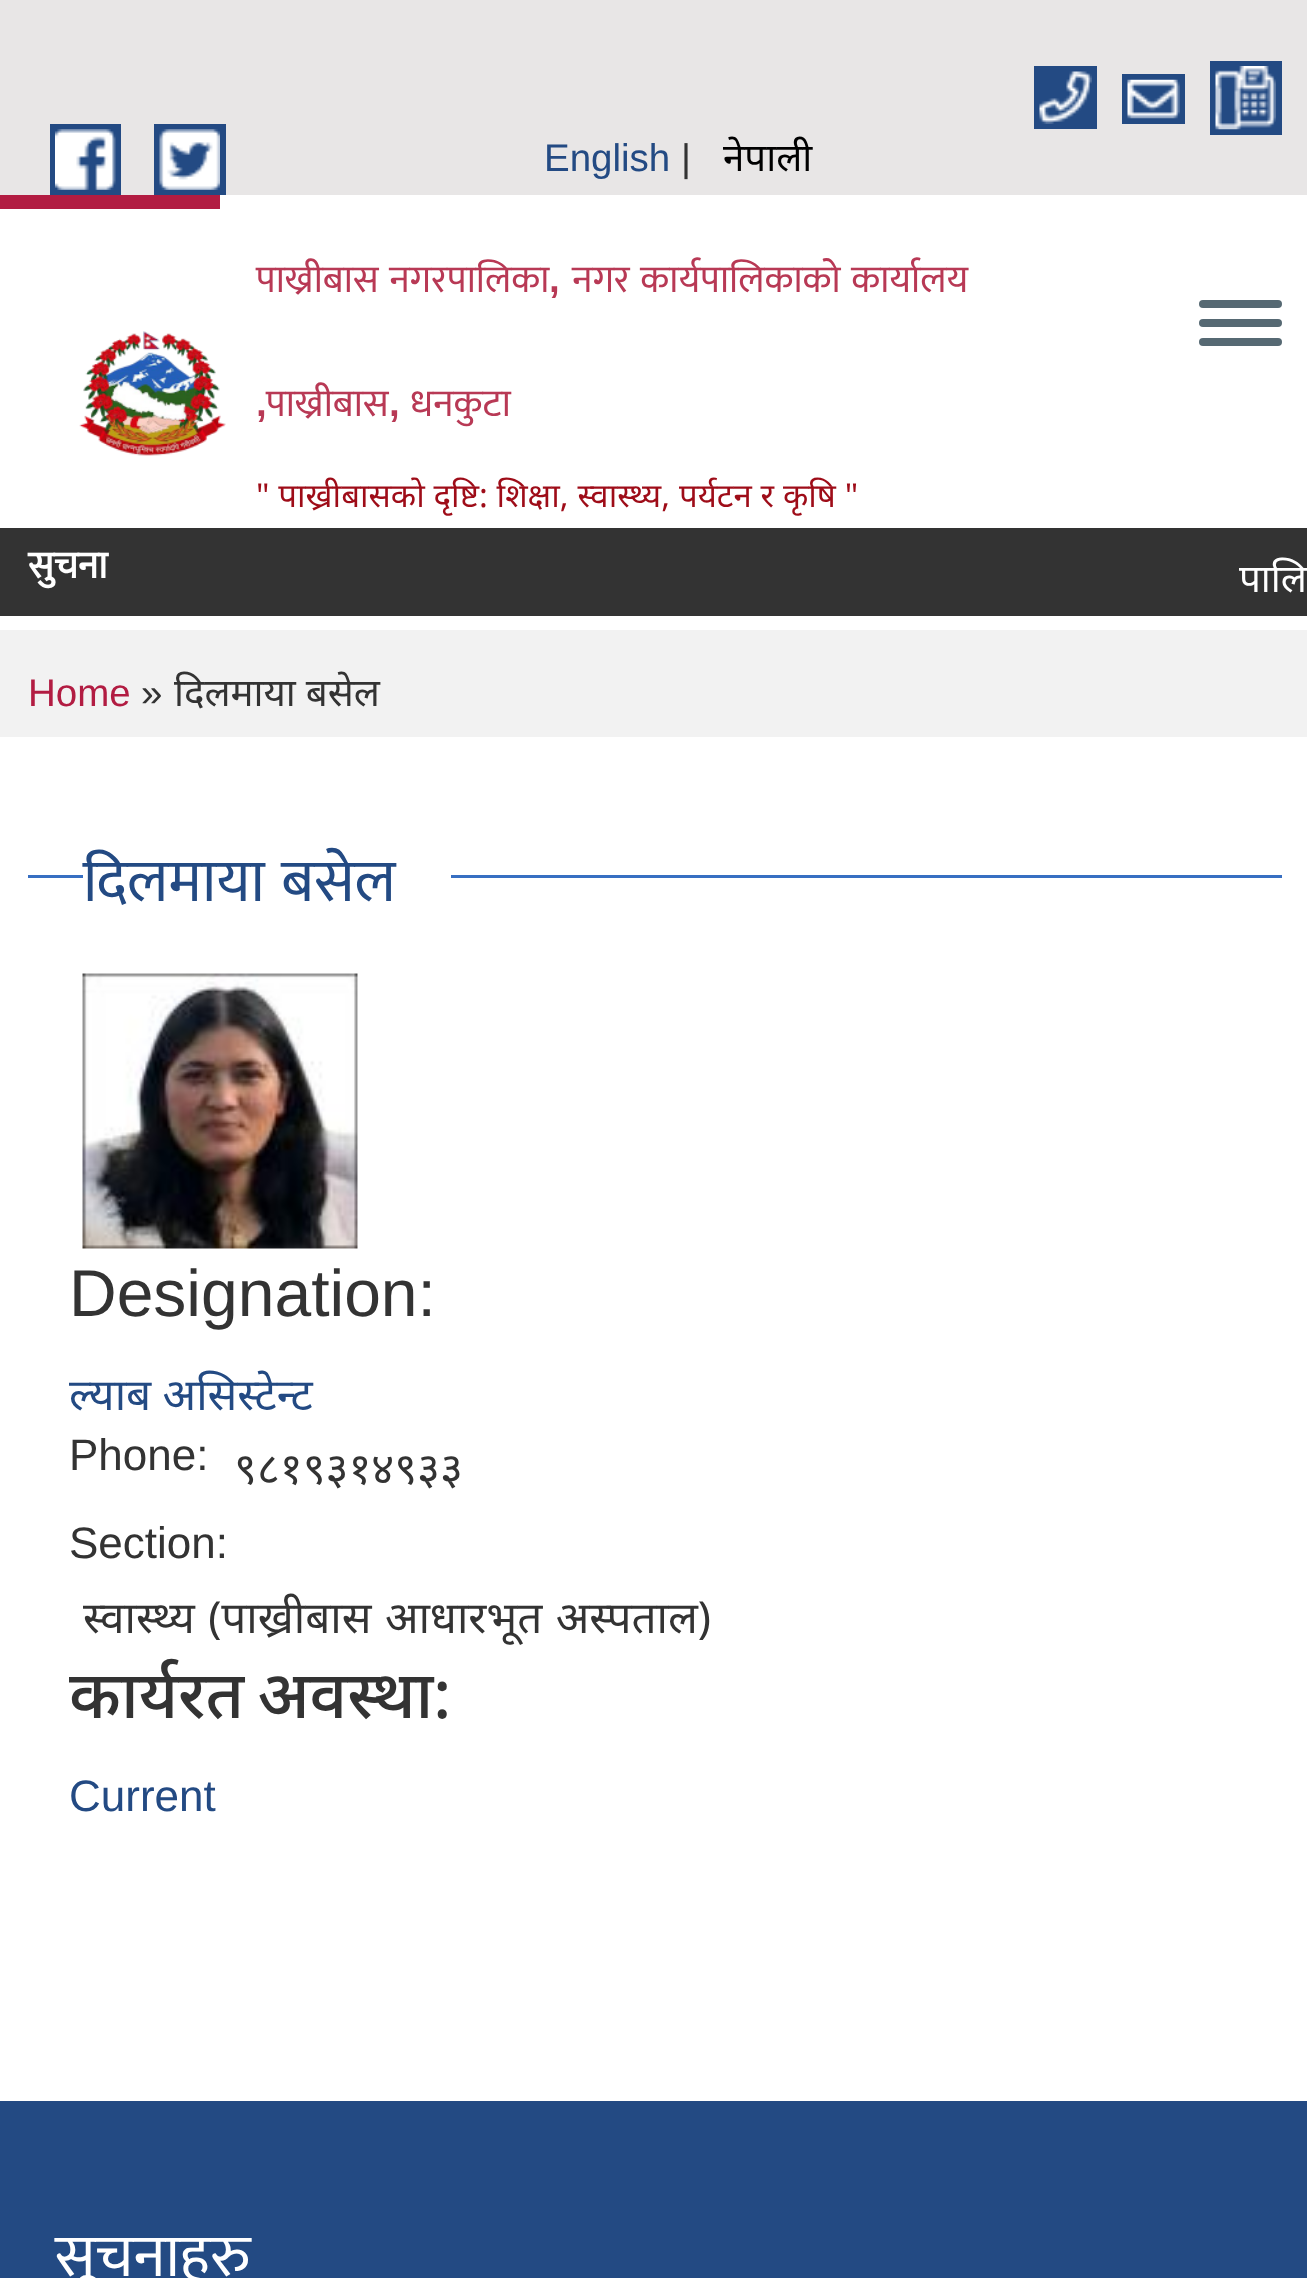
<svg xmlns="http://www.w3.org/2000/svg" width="1307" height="2278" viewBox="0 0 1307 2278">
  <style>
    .t1 { font: 38.5px Liberation Sans; fill: #234a83; }
    .t2 { font: 38.5px Liberation Sans; fill: #333; }
    .t3 { font: 38.5px Noto Sans; fill: #000; }
    .t4 { font: 38.5px Mukta; fill: #b83955; }
    .t5 { font: bold 38.5px Liberation Sans; fill: #b83955; }
    .t6 { font: 33px Noto Sans; fill: #9e0c18; }
    .t7 { font: bold 38.5px Mukta; fill: #fff; }
    .t8 { font: 38.5px Noto Sans; fill: #fff; }
    .t9 { font: 38.5px Liberation Sans; fill: #b21c42; }
    .t10 { font: 38.5px Noto Sans; fill: #333; }
    .t11 { font: 60.5px Mukta; fill: #234a83; }
    .t12 { font: 66px Liberation Sans; fill: #333; }
    .t13 { font: 44px Noto Sans; fill: #234a83; }
    .t14 { font: 44px Liberation Sans; fill: #333; }
    .t15 { font: 44px Noto Sans; fill: #333; }
    .t16 { font: 500 66px Noto Sans; fill: #333; }
    .t17 { font: 44px Liberation Sans; fill: #234a83; }
    .t18 { font: 60.5px Mukta; fill: #fff; }
  </style>
  <rect width="100%" height="100%" fill="#fff"/>
  <rect x="0" y="0" width="1307" height="195" fill="#e8e6e6"/>
  <rect x="1034" y="66" width="63" height="63" fill="#234a83"/>
  <rect x="1210" y="61" width="72" height="74" fill="#234a83"/>
  <image x="1039" y="71" width="53" height="53" href="images/1.png"/>
  <rect x="1122" y="74" width="63" height="50" fill="#234a83"/>
  <image x="1215" y="66" width="61" height="64" href="images/2.png"/>
  <image x="1127" y="79" width="53" height="40" href="images/3.png"/>
  <rect x="50" y="124" width="71" height="71" fill="#234a83"/>
  <rect x="154" y="124" width="72" height="71" fill="#234a83"/>
  <image x="55" y="129" width="61" height="61" href="images/4.png"/>
  <image x="159" y="129" width="61" height="61" href="images/5.png"/>
  <text x="544" y="171" class="t1">English</text>
  <text x="681" y="171" class="t2">|</text>
  <text x="723" y="171" class="t3">नेपाली</text>
  <rect x="0" y="195" width="220" height="14" fill="#b21c42"/>
  <image x="79" y="331" width="147" height="125" href="images/6.png"/>
  <text x="256" y="292" word-spacing="2" class="t4">पाख्रीबास नगरपालिका</text>
  <text x="549" y="292" class="t5">,</text>
  <text x="572" y="292" word-spacing="2" class="t4">नगर कार्यपालिकाको कार्यालय</text>
  <text x="256" y="416" class="t5">,</text>
  <text x="266" y="416" class="t4">पाख्रीबास</text>
  <text x="389" y="416" class="t5">,</text>
  <text x="410" y="416" class="t4">धनकुटा</text>
  <text x="256" y="507" word-spacing="0.25" class="t6">" पाख्रीबासको दृष्टि: शिक्षा, स्वास्थ्य, पर्यटन र कृषि "</text>
  <rect x="1199" y="300" width="83" height="8" rx="4" fill="#566973"/>
  <rect x="1199" y="319" width="83" height="8" rx="4" fill="#566973"/>
  <rect x="1199" y="338" width="83" height="8" rx="4" fill="#566973"/>
  <rect x="0" y="528" width="1307" height="88" fill="#333"/>
  <text x="28" y="578" class="t7">सुचना</text>
  <text x="1239" y="592" word-spacing="1" class="t8">पालि</text>
  <rect x="0" y="630" width="1307" height="107" fill="#f2f2f2"/>
  <text x="28" y="706" class="t9">Home</text>
  <text x="141" y="706" class="t2">»</text>
  <text x="174" y="706" class="t10">दिलमाया बसेल</text>
  <rect x="28" y="875" width="1254" height="3" fill="#376fc2"/>
  <rect x="83" y="875" width="368" height="3" fill="#fff"/>
  <text x="83" y="901" word-spacing="3" class="t11">दिलमाया बसेल</text>
  <image x="82" y="973" width="276" height="276" href="images/7.png"/>
  <text x="69" y="1316" class="t12">Designation:</text>
  <text x="69" y="1410" class="t13">ल्याब असिस्टेन्ट</text>
  <text x="69" y="1470" class="t14">Phone:</text>
  <text x="234" y="1484" class="t15">९८१९३१४९३३</text>
  <text x="69" y="1558" class="t14">Section:</text>
  <text x="83" y="1633" word-spacing="2" class="t15">स्वास्थ्य (पाख्रीबास आधारभूत अस्पताल)</text>
  <text x="69" y="1718" word-spacing="-4" class="t16">कार्यरत अवस्था:</text>
  <text x="69" y="1811" class="t17">Current</text>
  <rect x="0" y="2101" width="1307" height="177" fill="#234a83"/>
  <text x="55" y="2276" class="t18">सूचनाहरु</text>
</svg>
